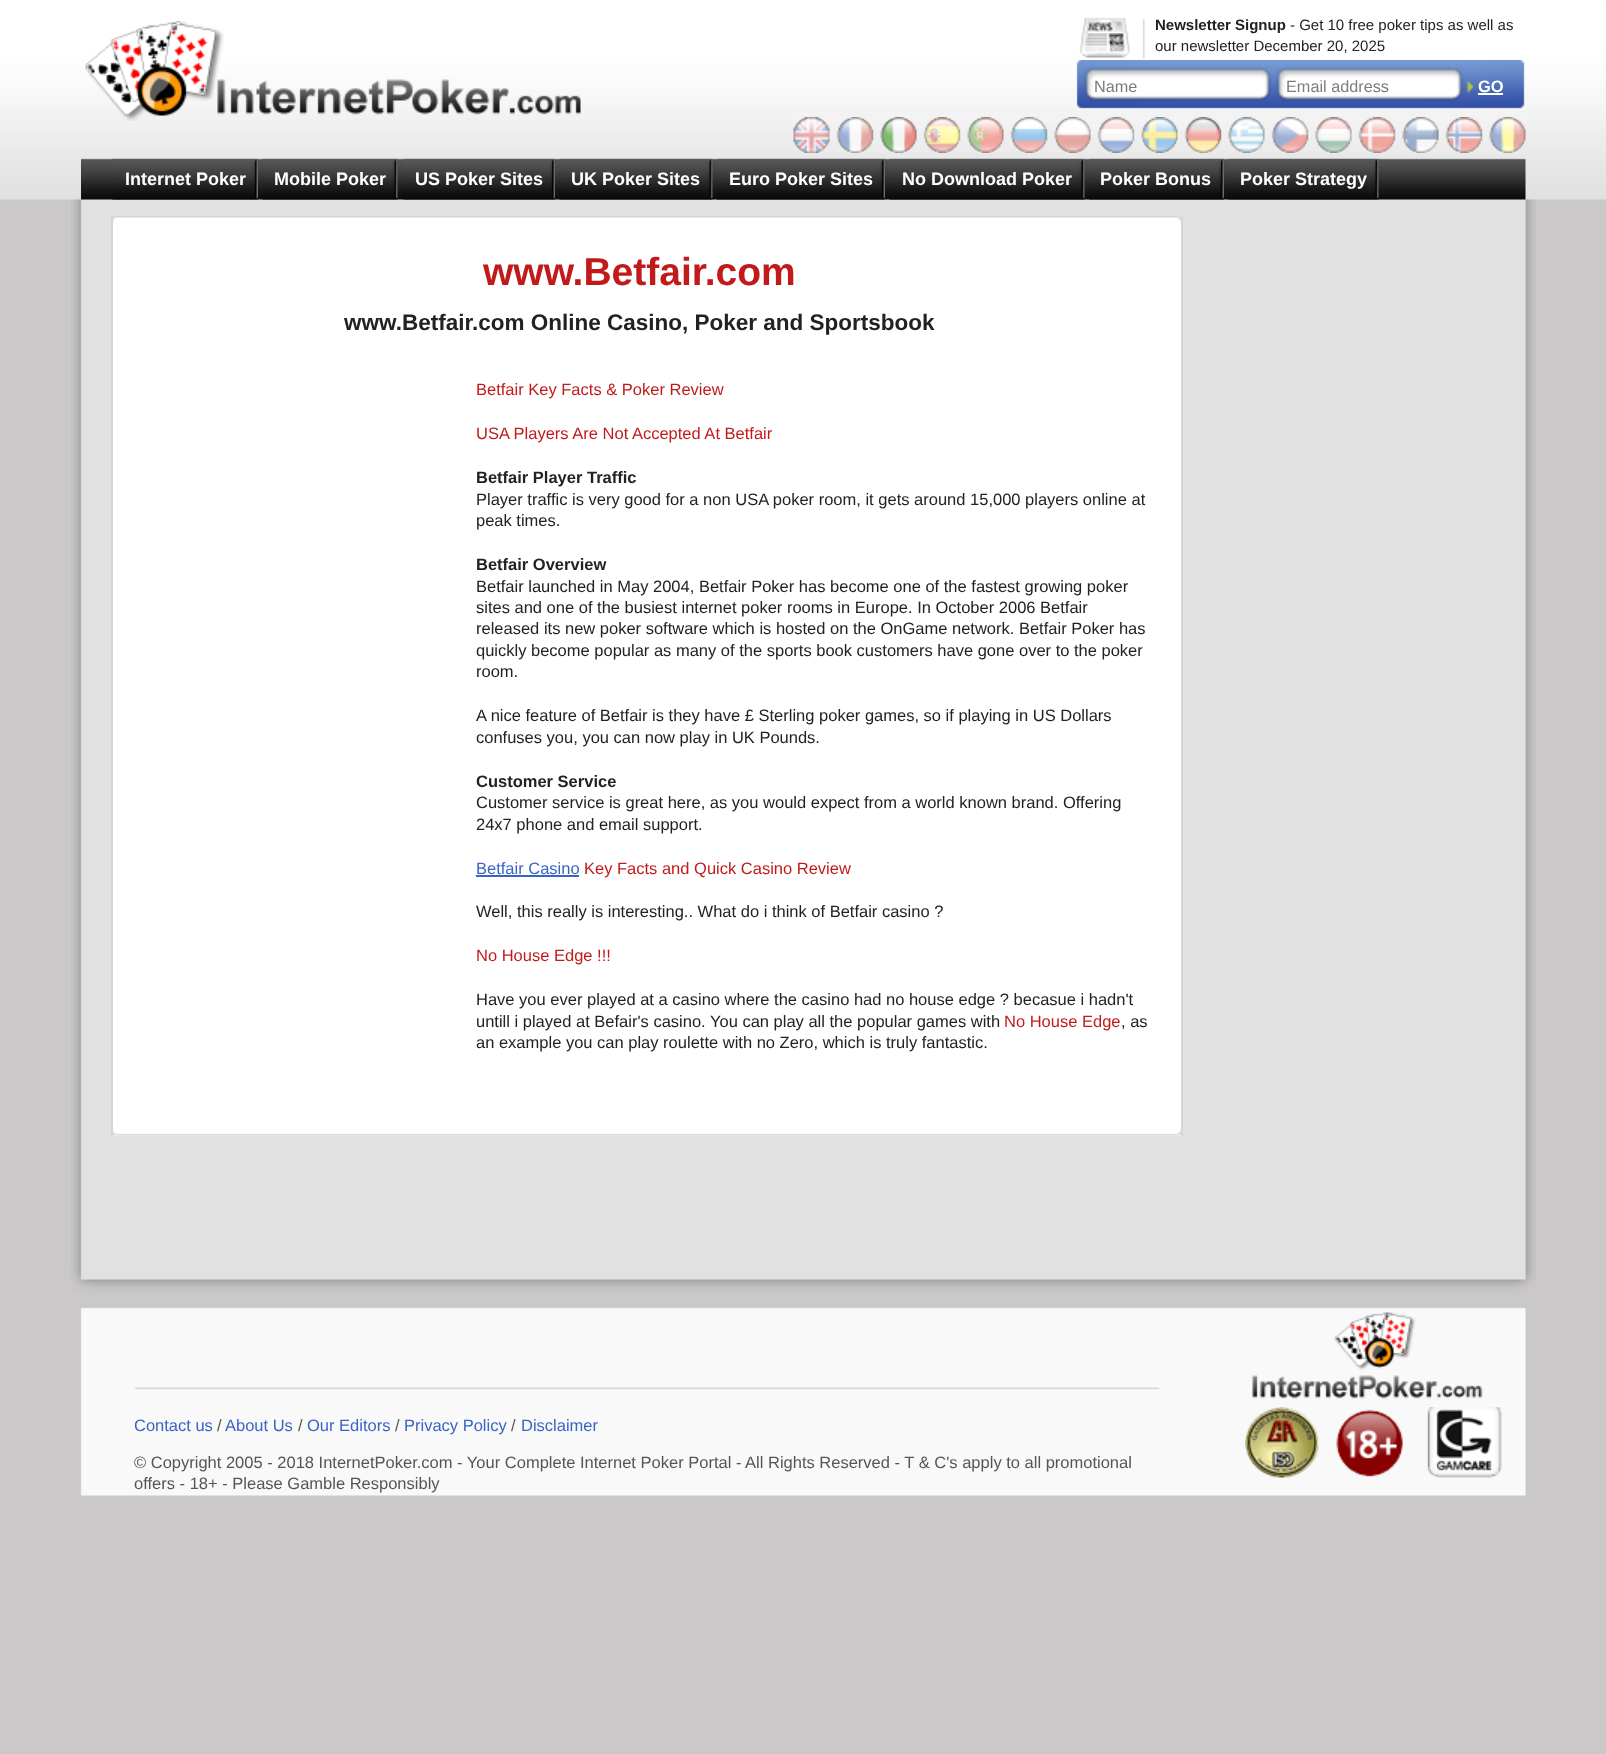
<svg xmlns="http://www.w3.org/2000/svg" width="1606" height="1754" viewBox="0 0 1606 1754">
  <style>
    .t1 { font: bold 15px Liberation Sans; fill: #222; }
    .t2 { font: 15px Liberation Sans; fill: #222; }
    .t3 { font: 16.25px Liberation Sans; fill: #7c7c7c; }
    .t4 { font: bold 16.5px Liberation Sans; fill: #fff; }
    .t5 { font: bold 18px Liberation Sans; fill: #fff; }
    .t6 { font: bold 39px Liberation Sans; fill: #c11a1a; }
    .t7 { font: bold 22.5px Liberation Sans; fill: #222; }
    .t8 { font: 16.5px Liberation Sans; fill: #c11a1a; }
    .t9 { font: bold 16.5px Liberation Sans; fill: #222; }
    .t10 { font: 16.5px Liberation Sans; fill: #222; }
    .t11 { font: 16.5px Liberation Sans; fill: #3964c3; }
    .t12 { font: 16.5px Liberation Sans; fill: #555; }
  </style>
  <rect width="100%" height="100%" fill="#cac8c9"/>
  <image x="0" y="0" width="1606" height="200" href="images/1.png"/>
  <image x="85" y="21" width="496" height="100" href="images/2.png"/>
  <image x="1079" y="17" width="66" height="42" href="images/3.png"/>
  <text x="1155" y="30" class="t1">Newsletter Signup</text>
  <text x="1290" y="30" class="t2">- Get 10 free poker tips as well as</text>
  <text x="1155" y="51" class="t2">our newsletter December 20, 2025</text>
  <image x="1075" y="60" width="451" height="50" href="images/4.png"/>
  <text x="1094" y="92" class="t3">Name</text>
  <text x="1286" y="92" class="t3">Email address</text>
  <image x="1467" y="80" width="7" height="13" href="images/5.png"/>
  <text x="1478" y="92" class="t4">GO</text>
  <rect x="1478" y="93" width="25" height="2" fill="#fff"/>
  <image x="793" y="117" width="733" height="36" href="images/6.png"/>
  <image x="71" y="199" width="1465" height="1064" href="images/16.png"/>
  <image x="81" y="158" width="1445" height="42" href="images/7.png"/>
  <image x="112" y="158" width="146" height="42" href="images/8.png"/>
  <text x="125" y="185" class="t5">Internet Poker</text>
  <image x="262" y="158" width="136" height="42" href="images/9.png"/>
  <text x="274" y="185" class="t5">Mobile Poker</text>
  <image x="403" y="158" width="152" height="42" href="images/10.png"/>
  <text x="415" y="185" class="t5">US Poker Sites</text>
  <image x="559" y="158" width="154" height="42" href="images/11.png"/>
  <text x="571" y="185" class="t5">UK Poker Sites</text>
  <image x="717" y="158" width="168" height="42" href="images/12.png"/>
  <text x="729" y="185" class="t5">Euro Poker Sites</text>
  <image x="889" y="158" width="196" height="42" href="images/13.png"/>
  <text x="902" y="185" class="t5">No Download Poker</text>
  <image x="1089" y="158" width="135" height="42" href="images/14.png"/>
  <text x="1100" y="185" class="t5">Poker Bonus</text>
  <image x="1228" y="158" width="151" height="42" href="images/15.png"/>
  <text x="1240" y="185" class="t5">Poker Strategy</text>
  <rect x="113" y="222" width="1068" height="914" fill="#fff"/>
  <image x="113" y="216" width="1068" height="6" href="images/17.png"/>
  <image x="113" y="1129" width="1068" height="7" href="images/18.png"/>
  <rect x="1181" y="216" width="2" height="920" fill="#d5d5d5"/>
  <rect x="111" y="216" width="2" height="920" fill="#d5d5d5"/>
  <text x="483" y="285" class="t6">www.Betfair.com</text>
  <text x="344" y="330" class="t7">www.Betfair.com Online Casino, Poker and Sportsbook</text>
  <text x="476" y="395" class="t8">Betfair Key Facts &amp; Poker Review</text>
  <text x="476" y="439" class="t8">USA Players Are Not Accepted At Betfair</text>
  <text x="476" y="483" class="t9">Betfair Player Traffic</text>
  <text x="476" y="505" class="t10">Player traffic is very good for a non USA poker room, it gets around 15,000 players online at</text>
  <text x="476" y="526" class="t10">peak times.</text>
  <text x="476" y="570" class="t9">Betfair Overview</text>
  <text x="476" y="592" class="t10">Betfair launched in May 2004, Betfair Poker has become one of the fastest growing poker</text>
  <text x="476" y="613" class="t10">sites and one of the busiest internet poker rooms in Europe. In October 2006 Betfair</text>
  <text x="476" y="634" class="t10">released its new poker software which is hosted on the OnGame network. Betfair Poker has</text>
  <text x="476" y="656" class="t10">quickly become popular as many of the sports book customers have gone over to the poker</text>
  <text x="476" y="677" class="t10">room.</text>
  <text x="476" y="721" class="t10">A nice feature of Betfair is they have £ Sterling poker games, so if playing in US Dollars</text>
  <text x="476" y="743" class="t10">confuses you, you can now play in UK Pounds.</text>
  <text x="476" y="787" class="t9">Customer Service</text>
  <text x="476" y="808" class="t10">Customer service is great here, as you would expect from a world known brand. Offering</text>
  <text x="476" y="830" class="t10">24x7 phone and email support.</text>
  <text x="476" y="874" class="t11">Betfair Casino</text>
  <rect x="476" y="875" width="103" height="2" fill="#3964c3"/>
  <text x="584" y="874" class="t8">Key Facts and Quick Casino Review</text>
  <text x="476" y="917" class="t10">Well, this really is interesting.. What do i think of Betfair casino ?</text>
  <text x="476" y="961" class="t8">No House Edge !!!</text>
  <text x="476" y="1005" class="t10">Have you ever played at a casino where the casino had no house edge ? becasue i hadn't</text>
  <text x="476" y="1027" class="t10">untill i played at Befair's casino. You can play all the popular games with</text>
  <text x="1004" y="1027" class="t8">No House Edge</text>
  <text x="1121" y="1027" class="t10">, as</text>
  <text x="476" y="1048" class="t10">an example you can play roulette with no Zero, which is truly fantastic.</text>
  <image x="71" y="1263" width="1465" height="233" href="images/19.png"/>
  <text x="134" y="1431" class="t11">Contact us</text>
  <text x="217" y="1431" class="t12">/</text>
  <text x="225" y="1431" class="t11">About Us</text>
  <text x="298" y="1431" class="t12">/</text>
  <text x="307" y="1431" class="t11">Our Editors</text>
  <text x="395" y="1431" class="t12">/</text>
  <text x="404" y="1431" class="t11">Privacy Policy</text>
  <text x="511" y="1431" class="t12">/</text>
  <text x="521" y="1431" class="t11">Disclaimer</text>
  <text x="134" y="1468" class="t12">© Copyright 2005 - 2018 InternetPoker.com - Your Complete Internet Poker Portal - All Rights Reserved - T &amp; C's apply to all promotional</text>
  <text x="134" y="1489" class="t12">offers - 18+ - Please Gamble Responsibly</text>
  <image x="1245" y="1407" width="257" height="71" href="images/20.png"/>
</svg>
